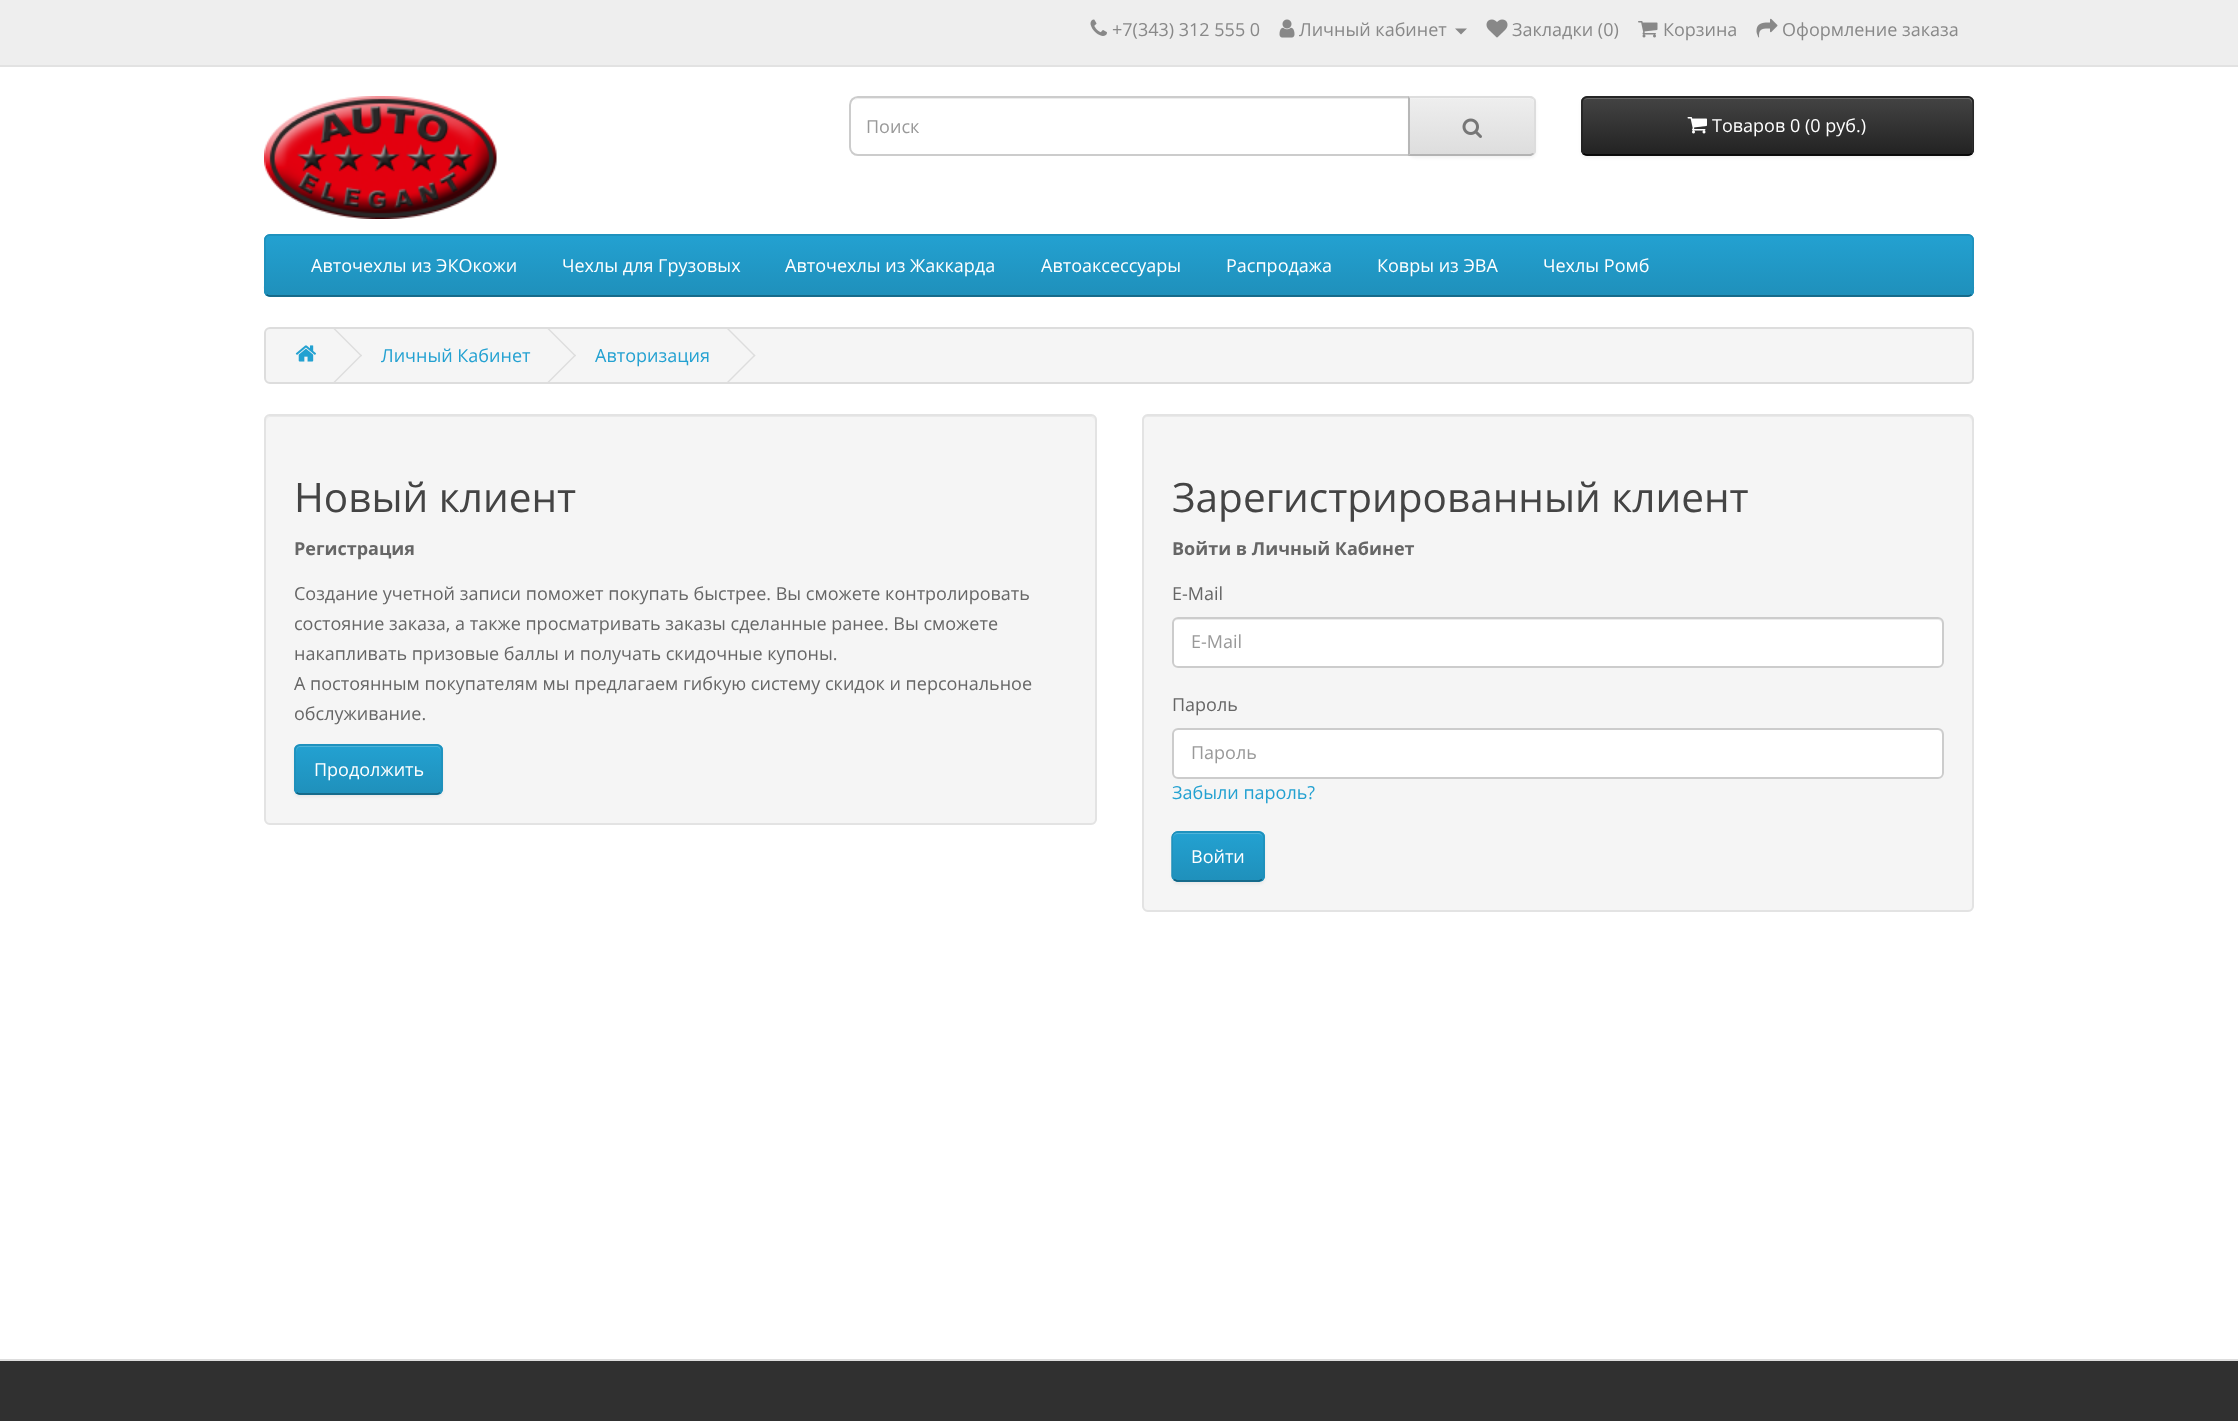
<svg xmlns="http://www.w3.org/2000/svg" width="2238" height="1421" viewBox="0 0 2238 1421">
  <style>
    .t1 { font: 18px Open Sans; fill: #888; }
    .t2 { font: 18px Open Sans; fill: #999; }
    .t3 { font: 18px Open Sans; fill: #fff; }
    .t4 { font: 18px Open Sans; fill: #23a1d1; }
    .t5 { font: 40.5px Open Sans; fill: #444; }
    .t6 { font: bold 18px Open Sans; fill: #666; }
    .t7 { font: 18px Open Sans; fill: #666; }
  </style>
  <defs>
    <clipPath id="clip1"><path d="M1409 96H1530C1533.5 96 1536 98.5 1536 102V150C1536 153.5 1533.5 156 1530 156H1409Z"/></clipPath>
    <linearGradient id="g1" gradientUnits="userSpaceOnUse" x1="1472" y1="98" x2="1472" y2="155"><stop offset="0" stop-color="#eee"/><stop offset="1" stop-color="#ddd"/></linearGradient>
    <clipPath id="clip2"><rect x="1581" y="96" width="393" height="60" rx="6"/></clipPath>
    <linearGradient id="g2" gradientUnits="userSpaceOnUse" x1="1778" y1="97" x2="1778" y2="155"><stop offset="0" stop-color="#444"/><stop offset="1" stop-color="#222"/></linearGradient>
    <clipPath id="clip3"><rect x="264" y="234" width="1710" height="63" rx="6"/></clipPath>
    <linearGradient id="g3" gradientUnits="userSpaceOnUse" x1="1119" y1="235" x2="1119" y2="296"><stop offset="0" stop-color="#23a1d1"/><stop offset="1" stop-color="#1f90bb"/></linearGradient>
    <clipPath id="clip4"><rect x="294" y="744" width="149" height="51" rx="6"/></clipPath>
    <linearGradient id="g4" gradientUnits="userSpaceOnUse" x1="368" y1="746" x2="368" y2="794"><stop offset="0" stop-color="#23a1d1"/><stop offset="1" stop-color="#1f90bb"/></linearGradient>
    <clipPath id="clip5"><rect x="1172" y="831" width="93" height="51" rx="6"/></clipPath>
    <linearGradient id="g5" gradientUnits="userSpaceOnUse" x1="1218" y1="833" x2="1218" y2="881"><stop offset="0" stop-color="#23a1d1"/><stop offset="1" stop-color="#1f90bb"/></linearGradient>
  </defs>
  <rect width="100%" height="100%" fill="#fff"/>
  <rect x="0" y="0" width="2238" height="65" fill="#eee"/>
  <rect x="0" y="65" width="2238" height="2" fill="#e2e2e2"/>
  <image x="1090" y="19" width="17" height="17" href="images/1.png"/>
  <text x="1112" y="36" class="t1">+7(343) 312 555 0</text>
  <image x="1279" y="19" width="16" height="19" href="images/2.png"/>
  <text x="1299" y="36" class="t1">Личный кабинет</text>
  <path d="M1455 28.5H1467L1461 34.5Z" fill="#888"/>
  <image x="1486" y="19" width="22" height="19" href="images/3.png"/>
  <text x="1512" y="36" class="t1">Закладки (0)</text>
  <image x="1638" y="21" width="20" height="17" href="images/4.png"/>
  <text x="1663" y="36" class="t1">Корзина</text>
  <image x="1756" y="18" width="22" height="20" href="images/5.png"/>
  <text x="1782" y="36" class="t1">Оформление заказа</text>
  <image x="264" y="96" width="233" height="123" href="images/6.png"/>
  <path d="M858 99H1408V155H1409V98H859C857 98 855 99 853 100C855 100 856 99 858 99Z" fill="#ececec"/>
  <path d="M858 97H1409V155H858C853.5 155 850 151.5 850 147V105C850 100.5 853.5 97 858 97Z" fill="none" stroke="#ccc" stroke-width="2"/>
  <text x="866" y="133" class="t2">Поиск</text>
  <rect x="1409" y="98" width="127" height="60" rx="6" fill="#0000000d" filter="blur(1.5px)"/>
  <path d="M1409 96H1530C1533.5 96 1536 98.5 1536 102V150C1536 153.5 1533.5 156 1530 156H1409Z" fill="#e7e7e7"/>
  <g clip-path="url(#clip1)">
    <rect x="1409" y="98" width="127" height="57" fill="url(#g1)"/>
  </g>
  <path d="M1410 99H1530C1536 99 1534 110 1534 112V153C1535 152 1535 151 1535 150V103C1535 100 1533 98 1530 98H1410Z" fill="#ffffff33"/>
  <path d="M1408 96L1410 98H1530L1533 99L1534 98C1533 97 1532 96 1530 96Z" fill="#ddd"/>
  <path d="M1536 150V102C1536 100 1535 99 1534 98L1533 99C1534 100 1534 101 1534 102V150C1534 151 1534 152 1533 153L1534 154C1535 153 1536 152 1536 150Z" fill="#ddd"/>
  <path d="M1408 156H1531L1534 154L1533 153L1530 154H1410Z" fill="#b3b3b3"/>
  <path d="M1410 98L1408 96V156L1410 154Z" fill="#b7b7b7"/>
  <image x="1462" y="118" width="20" height="20" href="images/7.png"/>
  <rect x="1581" y="98" width="393" height="60" rx="6" fill="#0000000d" filter="blur(1.5px)"/>
  <rect x="1581" y="96" width="393" height="60" rx="6" fill="#363636"/>
  <g clip-path="url(#clip2)">
    <rect x="1581" y="98" width="393" height="57" fill="url(#g2)"/>
  </g>
  <path d="M1587 99H1968C1970 99 1972 101 1972 104V153C1973 152 1973 151 1973 150V103C1973 100 1971 98 1968 98H1588C1586 98 1585 99 1584 100Z" fill="#ffffff33"/>
  <path d="M1971.5 153.5C1970.5 154.5 1969.5 155 1968 155H1587C1585.5 155 1584.5 154.5 1583.5 153.5" fill="none" stroke="#000" stroke-width="1.5"/>
  <path d="M1583.5 153.5C1582.5 152.5 1582 151.5 1582 150V102C1582 100.5 1582.5 99.5 1583.5 98.5C1584.5 97.5 1585.5 97 1587 97H1968C1969.5 97 1970.5 97.5 1971.5 98.5C1972.5 99.5 1973 100.5 1973 102V150C1973 151.5 1972.5 152.5 1971.5 153.5" fill="none" stroke="#222" stroke-width="1.5"/>
  <image x="1687" y="117" width="20" height="17" href="images/8.png"/>
  <text x="1712" y="132" class="t3">Товаров 0 (0 руб.)</text>
  <rect x="264" y="234" width="1710" height="63" rx="6" fill="#229ac8"/>
  <g clip-path="url(#clip3)">
    <rect x="264" y="236" width="1710" height="60" fill="url(#g3)"/>
  </g>
  <path d="M1971.5 294.5C1970.5 295.5 1969.5 296 1968 296H270C268.5 296 267.5 295.5 266.5 294.5" fill="none" stroke="#145e7a" stroke-width="1.5"/>
  <path d="M266.5 294.5C263.5 292 265 285 265 282.5V248.5C265 244.5 263 235 270 235H1968C1975 235 1973 244.5 1973 248.5V282.5C1973 285 1974.5 292 1971.5 294.5" fill="none" stroke="#1f90bb" stroke-width="1.5"/>
  <text x="311" y="272" class="t3">Авточехлы из ЭКОкожи</text>
  <text x="562" y="272" class="t3">Чехлы для Грузовых</text>
  <text x="785" y="272" class="t3">Авточехлы из Жаккарда</text>
  <text x="1041" y="272" class="t3">Автоаксессуары</text>
  <text x="1226" y="272" class="t3">Распродажа</text>
  <text x="1377" y="272" class="t3">Ковры из ЭВА</text>
  <text x="1543" y="272" class="t3">Чехлы Ромб</text>
  <rect x="265" y="328" width="1708" height="55" rx="5" fill="#f5f5f5" stroke="#ddd" stroke-width="2"/>
  <image x="295" y="345" width="21" height="17" href="images/9.png"/>
  <path d="M333.5 329L334.5 328L362 355.5L361 356.5Z" fill="#ddd"/>
  <path d="M333.5 382L361 354.5L362 355.5L334.5 383Z" fill="#ddd"/>
  <text x="381" y="362" class="t4">Личный Кабинет</text>
  <path d="M547.5 329L548.5 328L576 355.5L575 356.5Z" fill="#ddd"/>
  <path d="M547.5 382L575 354.5L576 355.5L548.5 383Z" fill="#ddd"/>
  <text x="595" y="362" class="t4">Авторизация</text>
  <path d="M727 329L728 328L755.5 355.5L754.5 356.5Z" fill="#ddd"/>
  <path d="M727 382L754.5 354.5L755.5 355.5L728 383Z" fill="#ddd"/>
  <rect x="264" y="414" width="833" height="411" rx="6" fill="#f5f5f5"/>
  <path d="M270 417H1090C1093 417 1095 419 1095 422V421C1095 418 1093 416 1090 416H271C268 416 266 418 266 421V422C266 419 268 417 270 417Z" fill="#e9e9e9"/>
  <rect x="265" y="415" width="831" height="409" rx="5" fill="none" stroke="#e3e3e3" stroke-width="2"/>
  <text x="294" y="512" class="t5">Новый клиент</text>
  <text x="294" y="555" class="t6">Регистрация</text>
  <text x="294" y="600" class="t7">Создание учетной записи поможет покупать быстрее. Вы сможете контролировать</text>
  <text x="294" y="630" class="t7">состояние заказа, а также просматривать заказы сделанные ранее. Вы сможете</text>
  <text x="294" y="660" class="t7">накапливать призовые баллы и получать скидочные купоны.</text>
  <text x="294" y="690" class="t7">А постоянным покупателям мы предлагаем гибкую систему скидок и персональное</text>
  <text x="294" y="720" class="t7">обслуживание.</text>
  <rect x="294" y="746" width="149" height="51" rx="6" fill="#0000000d" filter="blur(1.5px)"/>
  <rect x="294" y="744" width="149" height="51" rx="6" fill="#229ac8"/>
  <g clip-path="url(#clip4)">
    <rect x="294" y="746" width="149" height="48" fill="url(#g4)"/>
  </g>
  <path d="M300 747H436C439 747 441 749 441 752V751C441 748 439 746 436 746H301C298 746 296 748 296 751V752C296 749 298 747 300 747Z" fill="#4fb4da"/>
  <path d="M440 792.5C439 793.5 438 794 436.5 794H300C298.5 794 297.5 793.5 296.5 792.5" fill="none" stroke="#145e7a" stroke-width="1.5"/>
  <path d="M296.5 792.5C294 790 295 785.5 295 782.5V769.5C295 739.5 290.5 745 323 745H436.5C443 745 442 752.5 442 756.5V782.5C442 785.5 442.5 790 440 792.5" fill="none" stroke="#1f90bb" stroke-width="1.5"/>
  <text x="314" y="776" class="t3">Продолжить</text>
  <rect x="1142" y="414" width="832" height="498" rx="6" fill="#f5f5f5"/>
  <path d="M1148 417H1968C1970 417 1972 419 1972 422V909C1973 908 1973 907 1973 906V421C1973 418 1971 416 1968 416H1148C1145 416 1143 418 1143 421V422C1143 419 1145 417 1148 417Z" fill="#e9e9e9"/>
  <rect x="1143" y="415" width="830" height="496" rx="5" fill="none" stroke="#e3e3e3" stroke-width="2"/>
  <text x="1172" y="512" class="t5">Зарегистрированный клиент</text>
  <text x="1172" y="555" class="t6">Войти в Личный Кабинет</text>
  <text x="1172" y="600" class="t7">E-Mail</text>
  <rect x="1172" y="617" width="772" height="51" rx="6" fill="#fff"/>
  <path d="M1178 620H1938C1940 620 1942 622 1942 624V664C1943 663 1943 662 1943 661V623C1943 620 1941 618 1938 618H1178C1175 618 1173 620 1173 623V624C1173 622 1175 620 1178 620Z" fill="#ececec"/>
  <rect x="1173" y="618" width="770" height="49" rx="5" fill="none" stroke="#ccc" stroke-width="2"/>
  <text x="1191" y="648" class="t2">E-Mail</text>
  <text x="1172" y="711" class="t7">Пароль</text>
  <rect x="1172" y="728" width="772" height="51" rx="6" fill="#fff"/>
  <path d="M1178 730H1938C1940 730 1942 733 1942 735V775C1943 774 1943 773 1943 772V734C1943 731 1941 729 1938 729H1178C1175 729 1173 731 1173 734V735C1173 733 1175 730 1178 730Z" fill="#ececec"/>
  <rect x="1173" y="729" width="770" height="49" rx="5" fill="none" stroke="#ccc" stroke-width="2"/>
  <text x="1191" y="759" class="t2">Пароль</text>
  <text x="1172" y="799" class="t4">Забыли пароль?</text>
  <rect x="1172" y="833" width="93" height="51" rx="6" fill="#0000000d" filter="blur(1.5px)"/>
  <rect x="1172" y="831" width="93" height="51" rx="6" fill="#229ac8"/>
  <g clip-path="url(#clip5)">
    <rect x="1172" y="833" width="93" height="48" fill="url(#g5)"/>
  </g>
  <path d="M1178 834H1258C1261 834 1263 836 1263 838C1263 835 1261 833 1258 833H1178C1175 833 1173 835 1173 838C1173 836 1175 834 1178 834Z" fill="#4fb4da"/>
  <path d="M1262 879.5L1259 881H1177L1174 879.5" fill="none" stroke="#145e7a" stroke-width="1.5"/>
  <path d="M1174 879.5C1173 878.5 1172 877.5 1172 876V837C1172 835.5 1173 834.5 1174 833.5C1175 832.5 1176 832 1177.5 832H1258.5C1260 832 1261 832.5 1262 833.5C1263 834.5 1264 835.5 1264 837V876C1264 877.5 1263 878.5 1262 879.5" fill="none" stroke="#1f90bb" stroke-width="1.5"/>
  <text x="1191" y="863" class="t3">Войти</text>
  <rect x="0" y="1361" width="2238" height="60" fill="#303030"/>
  <rect x="0" y="1359" width="2238" height="2" fill="#ddd"/>
</svg>
